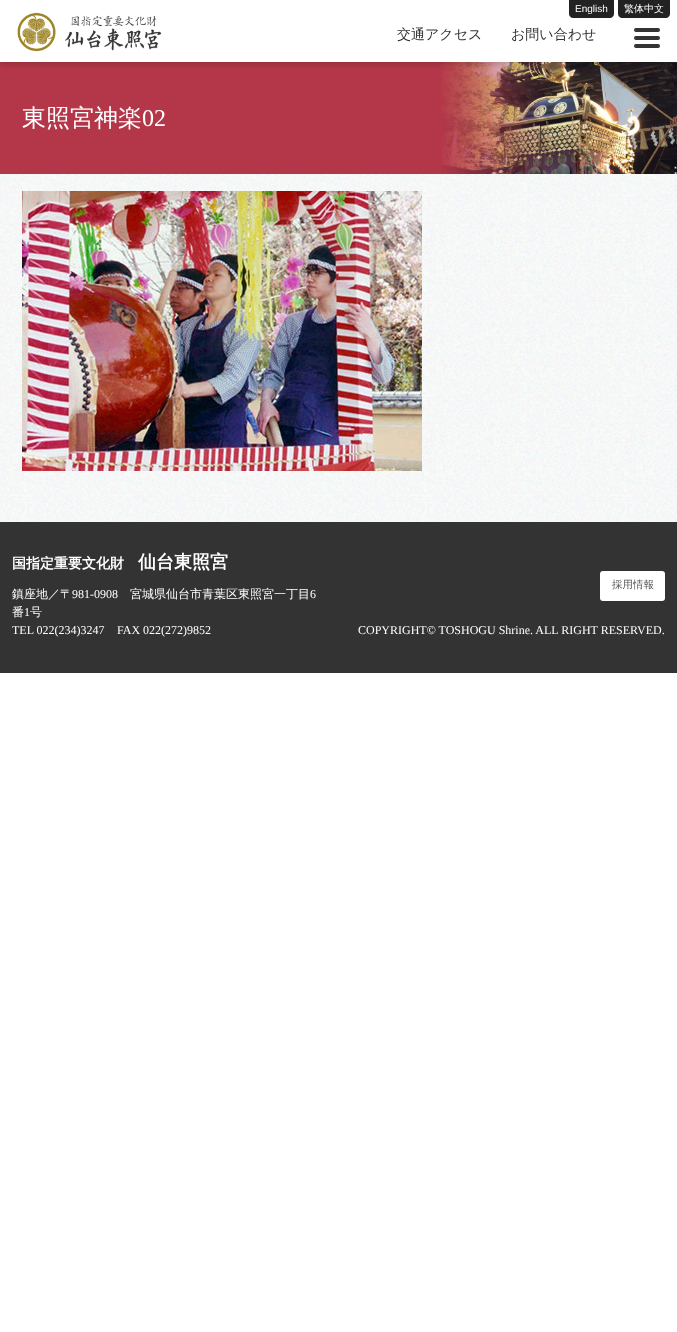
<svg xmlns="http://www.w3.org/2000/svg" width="677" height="1332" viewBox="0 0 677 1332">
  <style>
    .t1 { font: 10px Liberation Sans; fill: #fff; }
    .t2 { font: 500 10px WenQuanYi Zen Hei; fill: #fff; }
    .t3 { font: 500 14px WenQuanYi Zen Hei; fill: #333; }
    .t4 { font: 500 24px WenQuanYi Zen Hei; fill: #fff; }
    .t5 { font: 24px Liberation Serif; fill: #fff; }
    .t6 { font: bold 14px WenQuanYi Zen Hei; fill: #fff; }
    .t7 { font: bold 18px WenQuanYi Zen Hei; fill: #fff; }
    .t8 { font: 500 12px WenQuanYi Zen Hei; fill: #fff; }
    .t9 { font: 12px Liberation Serif; fill: #fff; }
    .t10 { font: 500 10.5px WenQuanYi Zen Hei; fill: #555; }
  </style>
  <rect width="100%" height="100%" fill="#fff"/>
  <rect x="0" y="62" width="441" height="112" fill="#b33749"/>
  <image x="441" y="62" width="236" height="112" href="images/3.png"/>
  <rect x="0" y="3" width="677" height="62" fill="#00000026" filter="blur(2.5px)"/>
  <rect x="0" y="0" width="677" height="62" fill="#fff"/>
  <path d="M569 0H614V14C614 16 612 18 610 18H573C571 18 569 16 569 14Z" fill="#222"/>
  <text x="575" y="12" class="t1">English</text>
  <path d="M618 0H670V14C670 16 668 18 666 18H622C620 18 618 16 618 14Z" fill="#222"/>
  <text x="624" y="12" class="t2">繁体中文</text>
  <image x="17" y="12" width="145" height="39" href="images/1.png"/>
  <text x="397" y="39" class="t3">交通アクセス</text>
  <text x="511" y="39" class="t3">お問い合わせ</text>
  <rect x="634" y="44" width="26" height="4" rx="2" fill="#333"/>
  <rect x="634" y="36" width="26" height="4" rx="2" fill="#333"/>
  <rect x="634" y="28" width="26" height="4" rx="2" fill="#333"/>
  <image x="0" y="174" width="677" height="348" href="images/2.png"/>
  <text x="22" y="126" class="t4">東照宮神楽</text>
  <text x="142" y="126" class="t5">02</text>
  <image x="22" y="191" width="400" height="280" href="images/4.png"/>
  <rect x="0" y="522" width="677" height="151" fill="#333"/>
  <text x="12" y="568" class="t6">国指定重要文化財</text>
  <text x="138" y="568" class="t7">仙台東照宮</text>
  <text x="12" y="598" class="t8">鎮座地／〒</text>
  <text x="72" y="598" class="t9">981-0908</text>
  <text x="130" y="598" class="t8">宮城県仙台市青葉区東照宮一丁目</text>
  <text x="310" y="598" class="t9">6</text>
  <text x="12" y="616" class="t8">番</text>
  <text x="24" y="616" class="t9">1</text>
  <text x="30" y="616" class="t8">号</text>
  <text x="12" y="634" class="t9">TEL 022(234)3247</text>
  <text x="117" y="634" class="t9">FAX 022(272)9852</text>
  <rect x="600" y="571" width="65" height="30" rx="3" fill="#fff"/>
  <text x="612" y="588" class="t10">採用情報</text>
  <text x="358" y="634" class="t9">COPYRIGHT© TOSHOGU Shrine. ALL RIGHT RESERVED.</text>
</svg>
